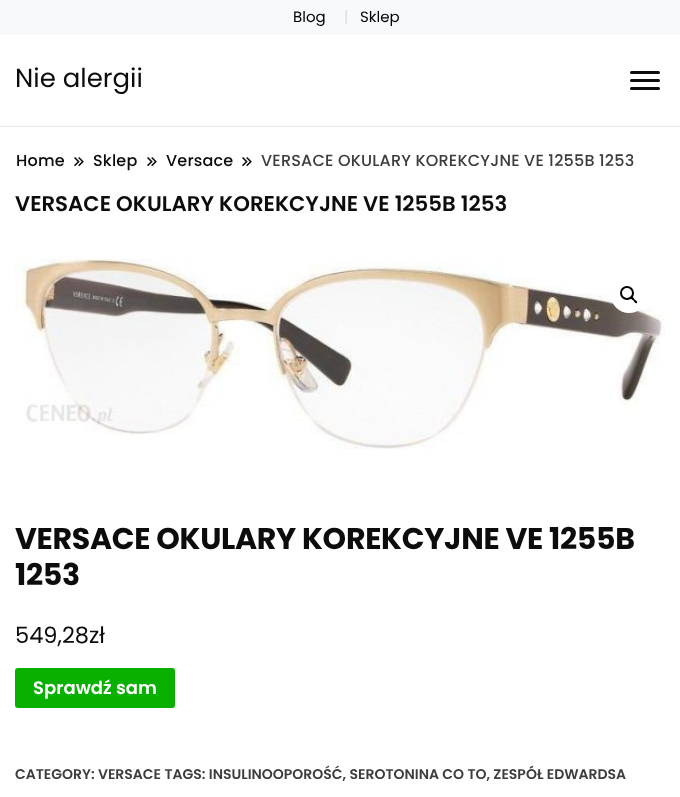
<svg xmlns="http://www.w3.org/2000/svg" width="680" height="797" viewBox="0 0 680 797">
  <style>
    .t1 { font: 15px Poppins; fill: #000; }
    .t2 { font: 15px Poppins; fill: #ddd; }
    .t3 { font: 26px Poppins; fill: #0c0c0c; }
    .t4 { font: 500 16px Poppins; letter-spacing: 0.2px; fill: #0c0c0c; }
    .t5 { font: 500 16px Poppins; letter-spacing: 0.2px; fill: #3d3d3d; }
    .t6 { font: 600 21.3px Poppins; fill: #0c0c0c; }
    .t7 { font: bold 30px Poppins; letter-spacing: -0.3px; fill: #0c0c0c; }
    .t8 { font: 22.5px Poppins; fill: #0c0c0c; }
    .t9 { font: 600 18px Poppins; fill: #fff; }
    .t10 { font: 600 14px Poppins; fill: #3d3d3d; }
  </style>
  <rect width="100%" height="100%" fill="#fff"/>
  <rect x="0" y="126" width="680" height="1" fill="#e8e9e9"/>
  <rect x="0" y="0" width="680" height="35" fill="#f8f9fa"/>
  <text x="293" y="22" class="t1">Blog</text>
  <text x="344" y="22" class="t2">|</text>
  <text x="360" y="22" class="t1">Sklep</text>
  <text x="15" y="87" class="t3">Nie alergii</text>
  <rect x="630" y="71" width="30" height="3" rx="1.5" fill="#0c0c0c"/>
  <rect x="630" y="79" width="30" height="3" rx="1.5" fill="#0c0c0c"/>
  <rect x="630" y="87" width="30" height="3" rx="1.5" fill="#0c0c0c"/>
  <text x="16" y="166" class="t4">Home</text>
  <image x="74" y="157" width="10" height="10" href="images/1.png"/>
  <text x="93" y="166" class="t4">Sklep</text>
  <image x="147" y="157" width="10" height="10" href="images/1.png"/>
  <text x="166" y="166" class="t4">Versace</text>
  <image x="242" y="157" width="10" height="10" href="images/1.png"/>
  <text x="261" y="166" class="t5">VERSACE OKULARY KOREKCYJNE VE 1255B 1253</text>
  <text x="15" y="211" class="t6">VERSACE OKULARY KOREKCYJNE VE 1255B 1253</text>
  <image x="15" y="259" width="650" height="190" href="images/2.png"/>
  <circle cx="629" cy="295" r="18" fill="#fff"/>
  <circle cx="627" cy="293" r="6" fill="none" stroke="#000" stroke-width="2"/>
  <path d="M631 297C632.5 296 634 298.5 634.5 299.5C635.5 300 638 301.5 637 303C635.5 304 634 301.5 633.5 300.5C632.5 300 630 298.5 631 297Z" fill="#000"/>
  <text x="15" y="549" class="t7">VERSACE OKULARY KOREKCYJNE VE 1255B</text>
  <text x="15" y="585" class="t7">1253</text>
  <text x="15" y="643" class="t8">549,28zł</text>
  <rect x="15" y="668" width="160" height="40" rx="3" fill="#09b000"/>
  <text x="33" y="694" class="t9">Sprawdź sam</text>
  <text x="15" y="779" class="t10">CATEGORY: VERSACE TAGS: INSULINOOPOROŚĆ, SEROTONINA CO TO, ZESPÓŁ EDWARDSA</text>
</svg>
